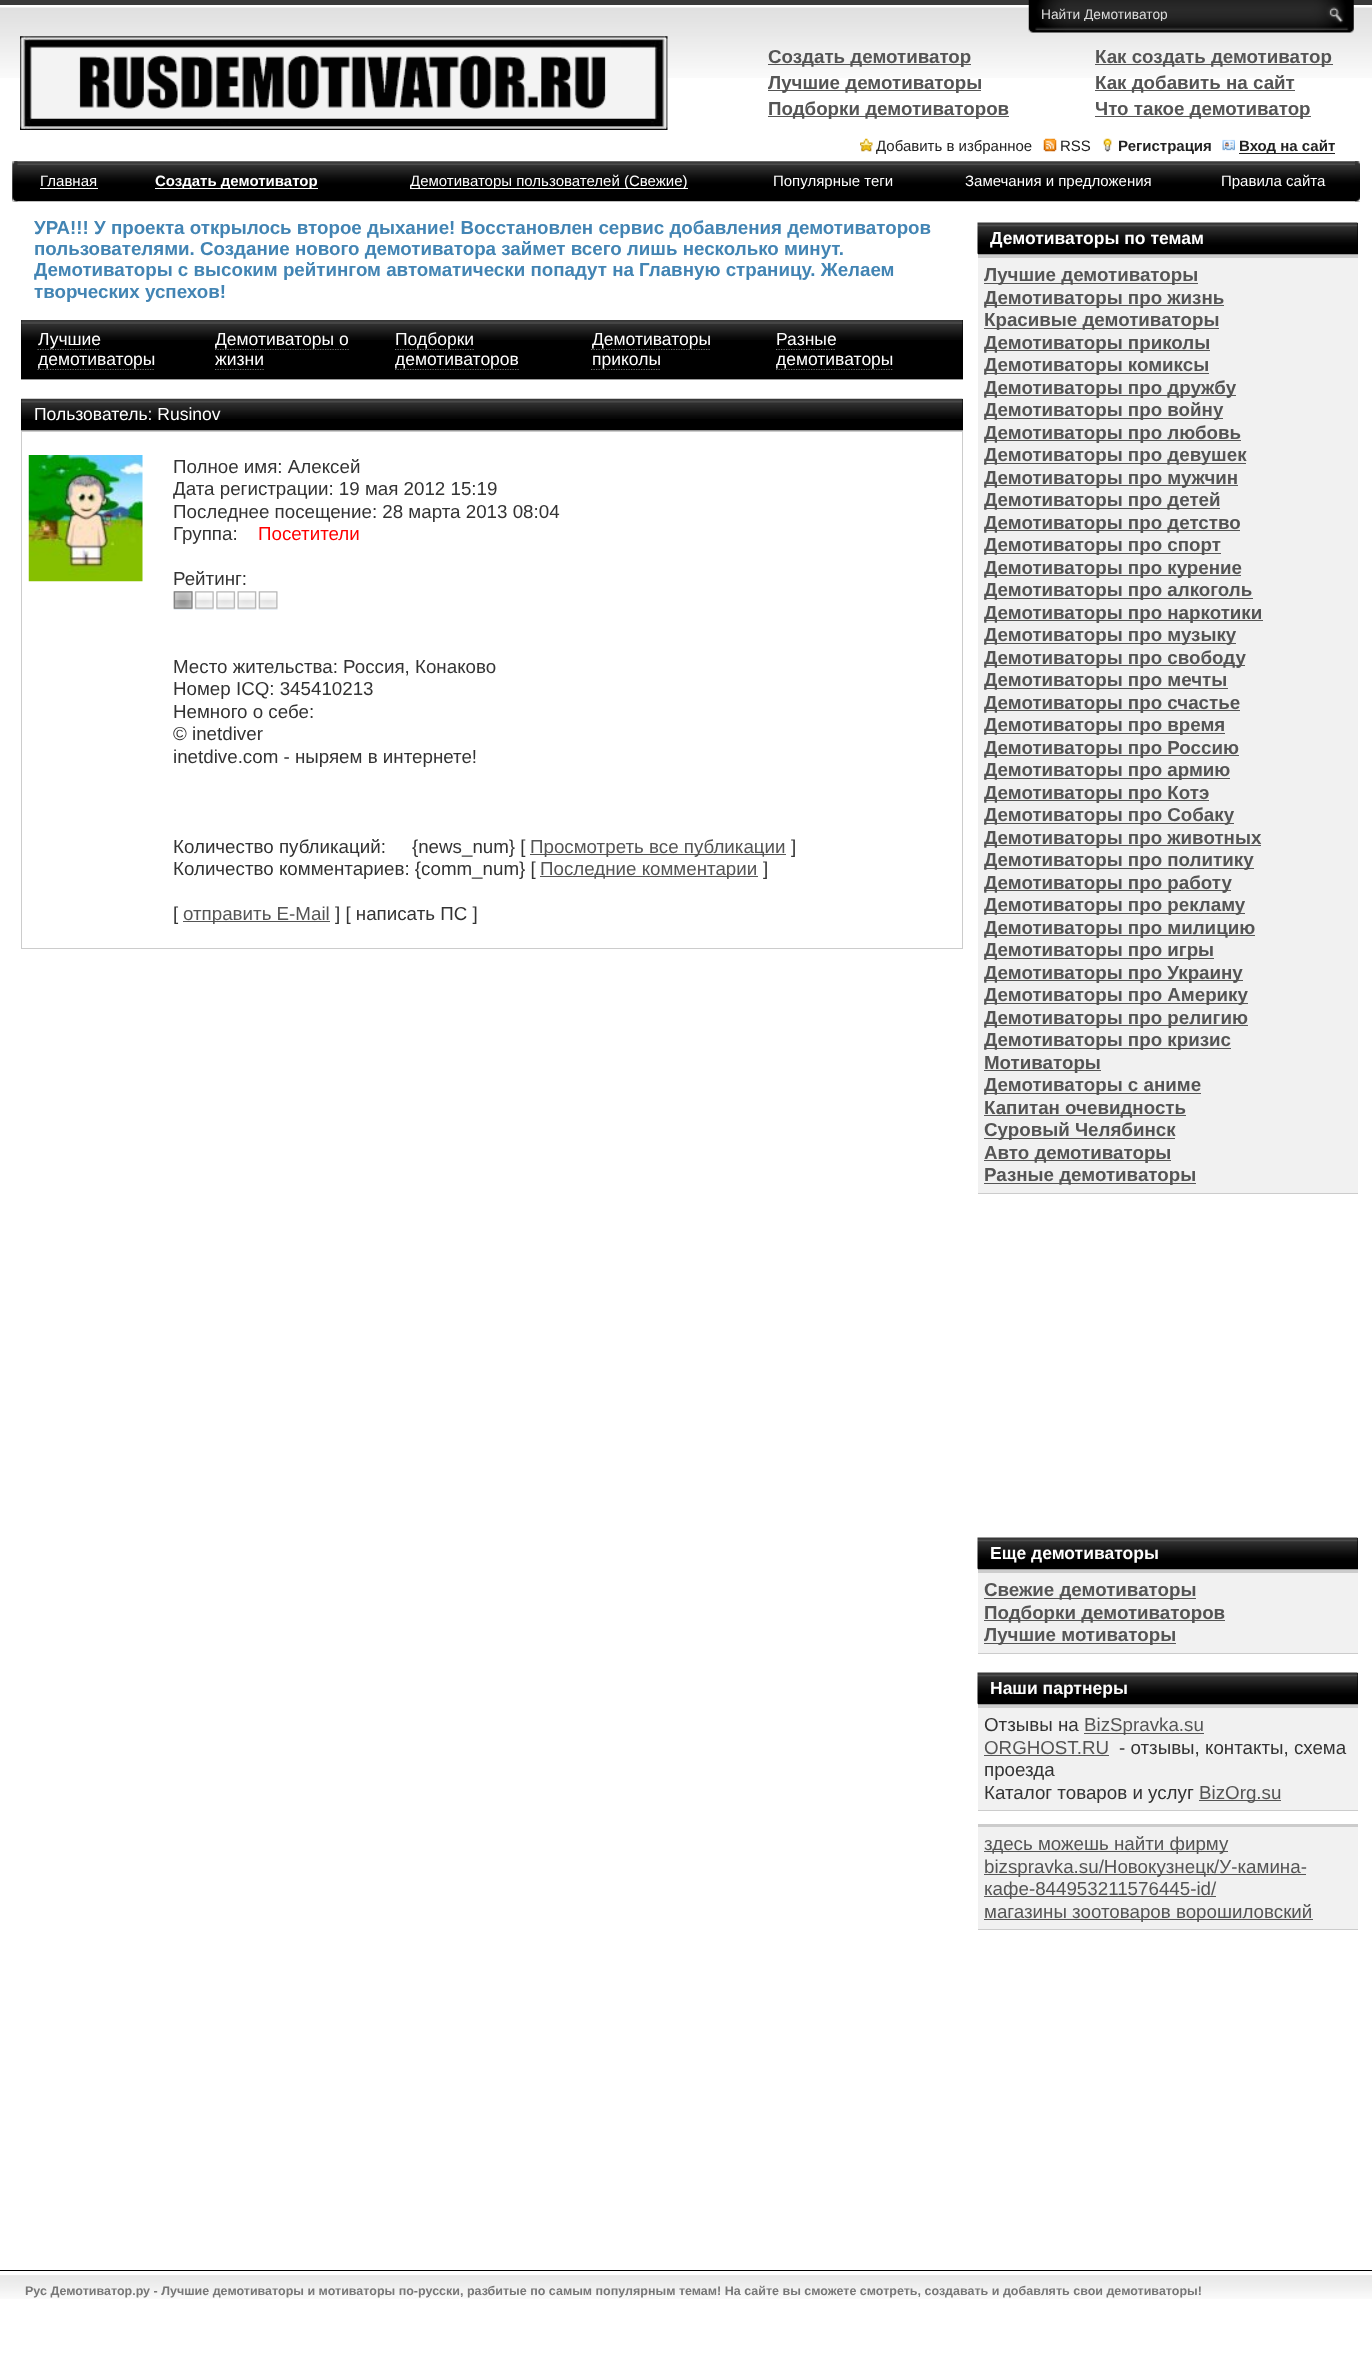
<svg xmlns="http://www.w3.org/2000/svg" width="1372" height="2367" viewBox="0 0 1372 2367">
  <style>
    .t1 { font: 13.75px Liberation Sans; fill: #ddd; }
    .t2 { font: 15px Liberation Sans; fill: #222; }
    .t3 { font: bold 15px Liberation Sans; fill: #222; }
    .t4 { font: 15px Liberation Sans; fill: #fff; }
    .t5 { font: bold 15px Liberation Sans; fill: #fff; }
    .t6 { font: bold 18.75px Liberation Sans; fill: #4385b4; }
    .t7 { font: 17.5px Liberation Sans; fill: #fff; }
    .t8 { font: 18.75px Liberation Sans; fill: #333; }
    .t9 { font: 18.75px Liberation Sans; fill: #f00; }
    .t10 { font: 18.75px Liberation Sans; fill: #555; }
    .t11 { font: bold 17.5px Liberation Sans; fill: #fff; }
    .t12 { font: bold 18.75px Liberation Sans; fill: #555; }
    .t13 { font: bold 12.5px Liberation Sans; fill: #777; }
  </style>
  <defs>
    <clipPath id="clip1"><rect x="1041" y="6" width="263" height="15"/></clipPath>
  </defs>
  <rect width="100%" height="100%" fill="#fff"/>
  <rect x="0" y="0" width="1372" height="5" fill="#393939"/>
  <image x="0" y="7" width="1372" height="71" href="images/1.png"/>
  <image x="1028" y="0" width="326" height="33" href="images/2.png"/>
  <g clip-path="url(#clip1)">
    <text x="1041" y="19" class="t1">Найти Демотиватор</text>
  </g>
  <image x="20" y="36" width="648" height="94" href="images/3.png"/>
  <image x="860" y="138" width="13" height="14" href="images/4.png"/>
  <text x="876" y="151" class="t2">Добавить в избранное</text>
  <image x="1043" y="138" width="14" height="14" href="images/5.png"/>
  <text x="1060" y="151" class="t2">RSS</text>
  <image x="1103" y="138" width="9" height="14" href="images/6.png"/>
  <text x="1118" y="151" class="t3">Регистрация</text>
  <image x="1222" y="139" width="13" height="12" href="images/7.png"/>
  <rect x="1239" y="153" width="96" height="1" fill="#222"/>
  <text x="1239" y="151" class="t3">Вход на сайт</text>
  <image x="12" y="161" width="1348" height="41" href="images/8.png"/>
  <image x="12" y="161" width="6" height="41" href="images/9.png"/>
  <text x="40" y="186" class="t4">Главная</text>
  <rect x="40" y="188" width="58" height="1" fill="#fff"/>
  <rect x="155" y="188" width="163" height="1" fill="#fff"/>
  <text x="155" y="186" class="t5">Создать демотиватор</text>
  <rect x="410" y="188" width="278" height="1" fill="#fff"/>
  <text x="410" y="186" class="t4">Демотиваторы пользователей (Свежие)</text>
  <text x="773" y="186" class="t4">Популярные теги</text>
  <text x="965" y="186" class="t4">Замечания и предложения</text>
  <text x="1221" y="186" class="t4">Правила сайта</text>
  <image x="1355" y="161" width="5" height="41" href="images/10.png"/>
  <text x="34" y="234" class="t6">УРА!!! У проекта открылось второе дыхание! Восстановлен сервис добавления демотиваторов</text>
  <text x="34" y="255" class="t6">пользователями. Создание нового демотиватора займет всего лишь несколько минут.</text>
  <text x="34" y="276" class="t6">Демотиваторы с высоким рейтингом автоматически попадут на Главную страницу. Желаем</text>
  <text x="34" y="298" class="t6">творческих успехов!</text>
  <rect x="21" y="379" width="942" height="1" fill="#999"/>
  <rect x="21" y="320" width="942" height="59" fill="#000"/>
  <image x="21" y="320" width="942" height="20" href="images/11.png"/>
  <path d="M37.5 349.5H100" fill="none" stroke="#777" stroke-width="1.2" stroke-dasharray="1.25 1.25"/>
  <text x="38" y="345" class="t7">Лучшие</text>
  <path d="M37.5 369.5H155" fill="none" stroke="#777" stroke-width="1.2" stroke-dasharray="1.25 1.25"/>
  <text x="38" y="365" class="t7">демотиваторы</text>
  <path d="M215 349.5H349" fill="none" stroke="#777" stroke-width="1.2" stroke-dasharray="1.25 1.25"/>
  <text x="215" y="345" class="t7">Демотиваторы о</text>
  <text x="215" y="365" class="t7">жизни</text>
  <path d="M215 369.5H264" fill="none" stroke="#777" stroke-width="1.2" stroke-dasharray="1.25 1.25"/>
  <path d="M395 349.5H474" fill="none" stroke="#777" stroke-width="1.2" stroke-dasharray="1.25 1.25"/>
  <text x="395" y="345" class="t7">Подборки</text>
  <path d="M395 369.5H519" fill="none" stroke="#777" stroke-width="1.2" stroke-dasharray="1.25 1.25"/>
  <text x="395" y="365" class="t7">демотиваторов</text>
  <path d="M591 349.5H711" fill="none" stroke="#777" stroke-width="1.2" stroke-dasharray="1.25 1.25"/>
  <text x="592" y="345" class="t7">Демотиваторы</text>
  <path d="M591 369.5H661" fill="none" stroke="#777" stroke-width="1.2" stroke-dasharray="1.25 1.25"/>
  <text x="592" y="365" class="t7">приколы</text>
  <text x="776" y="345" class="t7">Разные</text>
  <path d="M776 349.5H836" fill="none" stroke="#777" stroke-width="1.2" stroke-dasharray="1.25 1.25"/>
  <path d="M776 369.5H892.5" fill="none" stroke="#777" stroke-width="1.2" stroke-dasharray="1.25 1.25"/>
  <text x="776" y="365" class="t7">демотиваторы</text>
  <rect x="21" y="430" width="942" height="1" fill="#999"/>
  <rect x="21" y="399" width="942" height="31" fill="#000"/>
  <image x="21" y="398" width="942" height="21" href="images/12.png"/>
  <text x="34" y="420" class="t7">Пользователь: Rusinov</text>
  <rect x="21.5" y="431.5" width="941" height="517" fill="none" stroke="#ccc"/>
  <image x="28" y="455" width="115" height="127" href="images/13.png"/>
  <text x="173" y="473" class="t8">Полное имя: Алексей</text>
  <text x="173" y="495" class="t8">Дата регистрации: 19 мая 2012 15:19</text>
  <text x="173" y="518" class="t8">Последнее посещение: 28 марта 2013 08:04</text>
  <text x="173" y="540" class="t8">Группа:</text>
  <text x="258" y="540" class="t9">Посетители</text>
  <text x="173" y="585" class="t8">Рейтинг:</text>
  <image x="173" y="591" width="105" height="19" href="images/14.png"/>
  <image x="173" y="591" width="20" height="18" href="images/15.png"/>
  <text x="173" y="673" class="t8">Место жительства: Россия, Конаково</text>
  <text x="173" y="695" class="t8">Номер ICQ: 345410213</text>
  <text x="173" y="718" class="t8">Немного о себе:</text>
  <text x="173" y="740" class="t8">© inetdiver</text>
  <text x="173" y="763" class="t8">inetdive.com - ныряем в интернете!</text>
  <text x="173" y="853" class="t8" xml:space="preserve">Количество публикаций:     {news_num} [</text>
  <rect x="530" y="854" width="256" height="1" fill="#555"/>
  <text x="530" y="853" class="t10">Просмотреть все публикации</text>
  <text x="791" y="853" class="t8">]</text>
  <text x="173" y="875" class="t8">Количество комментариев: {comm_num} [</text>
  <rect x="540" y="876" width="218" height="1" fill="#555"/>
  <text x="540" y="875" class="t10">Последние комментарии</text>
  <text x="763" y="875" class="t8">]</text>
  <text x="173" y="920" class="t8">[</text>
  <rect x="183" y="921" width="147" height="1" fill="#555"/>
  <text x="183" y="920" class="t10">отправить E-Mail</text>
  <text x="335" y="920" class="t8">] [ написать ПС ]</text>
  <rect x="978" y="254" width="380" height="1" fill="#999"/>
  <rect x="978" y="223" width="380" height="31" fill="#000"/>
  <image x="977" y="222" width="381" height="32" href="images/16.png"/>
  <text x="990" y="244" class="t11">Демотиваторы по темам</text>
  <rect x="978" y="258" width="380" height="935" fill="#f1f1f1"/>
  <rect x="978" y="255" width="380" height="3" fill="#ccc"/>
  <rect x="978" y="1193" width="380" height="1" fill="#ccc"/>
  <rect x="984" y="283" width="214" height="1" fill="#555"/>
  <text x="984" y="281" class="t12">Лучшие демотиваторы</text>
  <rect x="984" y="305" width="240" height="1" fill="#555"/>
  <text x="984" y="304" class="t12">Демотиваторы про жизнь</text>
  <rect x="984" y="328" width="235" height="1" fill="#555"/>
  <text x="984" y="326" class="t12">Красивые демотиваторы</text>
  <rect x="984" y="350" width="226" height="1" fill="#555"/>
  <text x="984" y="349" class="t12">Демотиваторы приколы</text>
  <rect x="984" y="373" width="225" height="1" fill="#555"/>
  <text x="984" y="371" class="t12">Демотиваторы комиксы</text>
  <rect x="984" y="395" width="252" height="1" fill="#555"/>
  <text x="984" y="394" class="t12">Демотиваторы про дружбу</text>
  <rect x="984" y="418" width="239" height="1" fill="#555"/>
  <text x="984" y="416" class="t12">Демотиваторы про войну</text>
  <rect x="984" y="440" width="257" height="1" fill="#555"/>
  <text x="984" y="439" class="t12">Демотиваторы про любовь</text>
  <rect x="984" y="463" width="262" height="1" fill="#555"/>
  <text x="984" y="461" class="t12">Демотиваторы про девушек</text>
  <rect x="984" y="485" width="254" height="1" fill="#555"/>
  <text x="984" y="484" class="t12">Демотиваторы про мужчин</text>
  <rect x="984" y="508" width="236" height="1" fill="#555"/>
  <text x="984" y="506" class="t12">Демотиваторы про детей</text>
  <rect x="984" y="530" width="256" height="1" fill="#555"/>
  <text x="984" y="529" class="t12">Демотиваторы про детство</text>
  <rect x="984" y="553" width="237" height="1" fill="#555"/>
  <text x="984" y="551" class="t12">Демотиваторы про спорт</text>
  <rect x="984" y="575" width="257" height="1" fill="#555"/>
  <text x="984" y="574" class="t12">Демотиваторы про курение</text>
  <rect x="984" y="598" width="269" height="1" fill="#555"/>
  <text x="984" y="596" class="t12">Демотиваторы про алкоголь</text>
  <rect x="984" y="620" width="279" height="1" fill="#555"/>
  <text x="984" y="619" class="t12">Демотиваторы про наркотики</text>
  <rect x="984" y="643" width="252" height="1" fill="#555"/>
  <text x="984" y="641" class="t12">Демотиваторы про музыку</text>
  <rect x="984" y="665" width="261" height="1" fill="#555"/>
  <text x="984" y="664" class="t12">Демотиваторы про свободу</text>
  <rect x="984" y="688" width="244" height="1" fill="#555"/>
  <text x="984" y="686" class="t12">Демотиваторы про мечты</text>
  <rect x="984" y="710" width="256" height="1" fill="#555"/>
  <text x="984" y="709" class="t12">Демотиваторы про счастье</text>
  <rect x="984" y="733" width="241" height="1" fill="#555"/>
  <text x="984" y="731" class="t12">Демотиваторы про время</text>
  <rect x="984" y="755" width="255" height="1" fill="#555"/>
  <text x="984" y="754" class="t12">Демотиваторы про Россию</text>
  <rect x="984" y="778" width="246" height="1" fill="#555"/>
  <text x="984" y="776" class="t12">Демотиваторы про армию</text>
  <rect x="984" y="800" width="225" height="1" fill="#555"/>
  <text x="984" y="799" class="t12">Демотиваторы про Котэ</text>
  <rect x="984" y="823" width="250" height="1" fill="#555"/>
  <text x="984" y="821" class="t12">Демотиваторы про Собаку</text>
  <rect x="984" y="845" width="277" height="1" fill="#555"/>
  <text x="984" y="844" class="t12">Демотиваторы про животных</text>
  <rect x="984" y="868" width="270" height="1" fill="#555"/>
  <text x="984" y="866" class="t12">Демотиваторы про политику</text>
  <rect x="984" y="890" width="247" height="1" fill="#555"/>
  <text x="984" y="889" class="t12">Демотиваторы про работу</text>
  <rect x="984" y="913" width="261" height="1" fill="#555"/>
  <text x="984" y="911" class="t12">Демотиваторы про рекламу</text>
  <rect x="984" y="935" width="271" height="1" fill="#555"/>
  <text x="984" y="934" class="t12">Демотиваторы про милицию</text>
  <rect x="984" y="958" width="230" height="1" fill="#555"/>
  <text x="984" y="956" class="t12">Демотиваторы про игры</text>
  <rect x="984" y="980" width="259" height="1" fill="#555"/>
  <text x="984" y="979" class="t12">Демотиваторы про Украину</text>
  <rect x="984" y="1003" width="264" height="1" fill="#555"/>
  <text x="984" y="1001" class="t12">Демотиваторы про Америку</text>
  <rect x="984" y="1025" width="264" height="1" fill="#555"/>
  <text x="984" y="1024" class="t12">Демотиваторы про религию</text>
  <rect x="984" y="1048" width="247" height="1" fill="#555"/>
  <text x="984" y="1046" class="t12">Демотиваторы про кризис</text>
  <rect x="984" y="1070" width="117" height="1" fill="#555"/>
  <text x="984" y="1069" class="t12">Мотиваторы</text>
  <rect x="984" y="1093" width="217" height="1" fill="#555"/>
  <text x="984" y="1091" class="t12">Демотиваторы с аниме</text>
  <rect x="984" y="1115" width="202" height="1" fill="#555"/>
  <text x="984" y="1114" class="t12">Капитан очевидность</text>
  <rect x="984" y="1138" width="191" height="1" fill="#555"/>
  <text x="984" y="1136" class="t12">Суровый Челябинск</text>
  <rect x="984" y="1160" width="187" height="1" fill="#555"/>
  <text x="984" y="1159" class="t12">Авто демотиваторы</text>
  <rect x="984" y="1183" width="212" height="1" fill="#555"/>
  <text x="984" y="1181" class="t12">Разные демотиваторы</text>
  <rect x="978" y="1569" width="380" height="1" fill="#999"/>
  <rect x="978" y="1538" width="380" height="31" fill="#000"/>
  <image x="977" y="1537" width="381" height="32" href="images/17.png"/>
  <text x="990" y="1559" class="t11">Еще демотиваторы</text>
  <rect x="978" y="1573" width="380" height="80" fill="#f1f1f1"/>
  <rect x="978" y="1570" width="380" height="3" fill="#ccc"/>
  <rect x="978" y="1653" width="380" height="1" fill="#ccc"/>
  <rect x="984" y="1598" width="212" height="1" fill="#555"/>
  <text x="984" y="1596" class="t12">Свежие демотиваторы</text>
  <rect x="984" y="1620" width="241" height="1" fill="#555"/>
  <text x="984" y="1619" class="t12">Подборки демотиваторов</text>
  <rect x="984" y="1643" width="192" height="1" fill="#555"/>
  <text x="984" y="1641" class="t12">Лучшие мотиваторы</text>
  <rect x="978" y="1704" width="380" height="1" fill="#999"/>
  <rect x="978" y="1673" width="380" height="31" fill="#000"/>
  <image x="977" y="1672" width="381" height="32" href="images/18.png"/>
  <text x="990" y="1694" class="t11">Наши партнеры</text>
  <rect x="978" y="1708" width="380" height="102" fill="#f1f1f1"/>
  <rect x="978" y="1705" width="380" height="3" fill="#ccc"/>
  <rect x="978" y="1810" width="380" height="1" fill="#ccc"/>
  <text x="984" y="1731" class="t8">Отзывы на</text>
  <rect x="1084" y="1733" width="120" height="1" fill="#555"/>
  <text x="1084" y="1731" class="t10">BizSpravka.su</text>
  <text x="984" y="1754" class="t10">ORGHOST.RU</text>
  <rect x="984" y="1755" width="125" height="1" fill="#555"/>
  <text x="1119" y="1754" class="t8">- отзывы, контакты, схема</text>
  <text x="984" y="1776" class="t8">проезда</text>
  <text x="984" y="1799" class="t8">Каталог товаров и услуг</text>
  <rect x="1199" y="1800" width="82" height="1" fill="#555"/>
  <text x="1199" y="1799" class="t10">BizOrg.su</text>
  <rect x="978" y="1827" width="380" height="102" fill="#f1f1f1"/>
  <rect x="978" y="1824" width="380" height="3" fill="#ccc"/>
  <rect x="978" y="1929" width="380" height="1" fill="#ccc"/>
  <rect x="984" y="1851" width="244" height="1" fill="#555"/>
  <text x="984" y="1850" class="t10">здесь можешь найти фирму</text>
  <rect x="984" y="1874" width="322" height="1" fill="#555"/>
  <text x="984" y="1873" class="t10">bizspravka.su/Новокузнецк/У-камина-</text>
  <rect x="984" y="1896" width="232" height="1" fill="#555"/>
  <text x="984" y="1895" class="t10">кафе-844953211576445-id/</text>
  <rect x="984" y="1919" width="329" height="1" fill="#555"/>
  <text x="984" y="1918" class="t10">магазины зоотоваров ворошиловский</text>
  <rect x="768" y="64" width="203" height="1" fill="#555"/>
  <text x="768" y="63" class="t12">Создать демотиватор</text>
  <rect x="768" y="90" width="213" height="1" fill="#555"/>
  <text x="768" y="89" class="t12">Лучшие демотиваторы</text>
  <rect x="768" y="116" width="241" height="1" fill="#555"/>
  <text x="768" y="115" class="t12">Подборки демотиваторов</text>
  <rect x="1095" y="64" width="238" height="1" fill="#555"/>
  <text x="1095" y="63" class="t12">Как создать демотиватор</text>
  <rect x="1095" y="90" width="200" height="1" fill="#555"/>
  <text x="1095" y="89" class="t12">Как добавить на сайт</text>
  <rect x="1095" y="116" width="216" height="1" fill="#555"/>
  <text x="1095" y="115" class="t12">Что такое демотиватор</text>
  <image x="0" y="2275" width="1372" height="24" href="images/19.png"/>
  <rect x="0" y="2270" width="1372" height="1" fill="#000"/>
  <text x="25" y="2295" class="t13">Рус Демотиватор.ру - Лучшие демотиваторы и мотиваторы по-русски, разбитые по самым популярным темам! На сайте вы сможете смотреть, создавать и добавлять свои демотиваторы!</text>
</svg>
